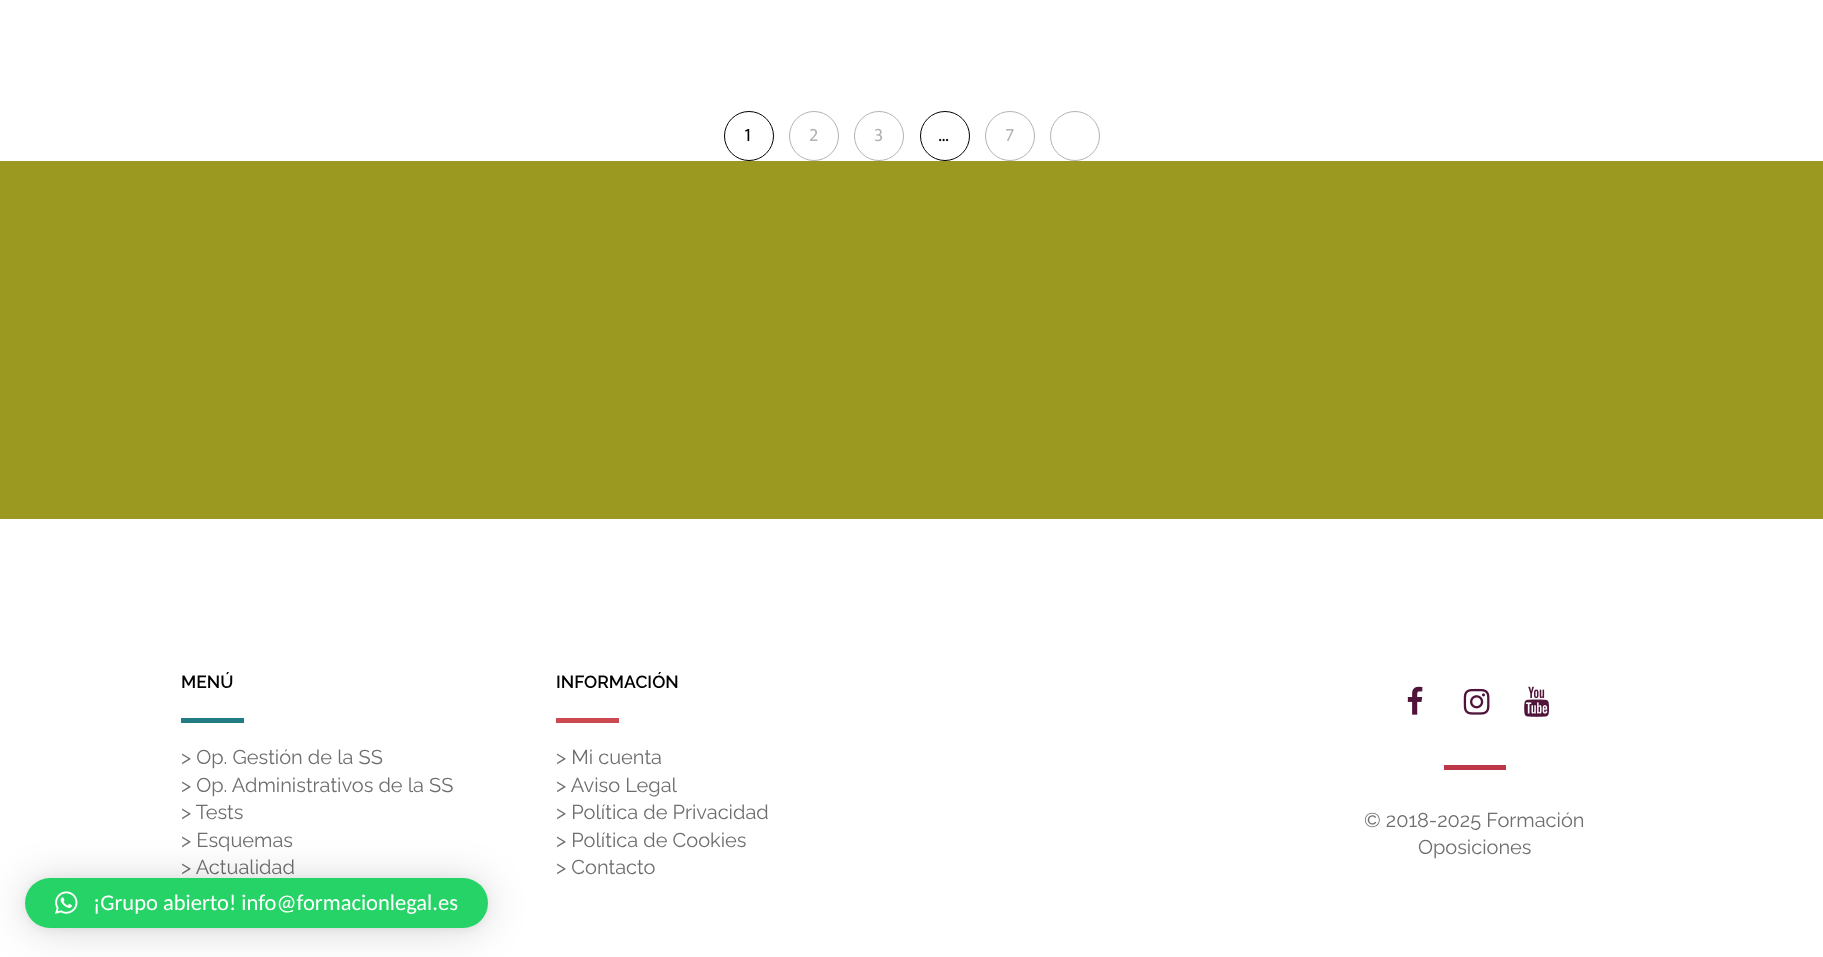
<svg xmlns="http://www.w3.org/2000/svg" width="1823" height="957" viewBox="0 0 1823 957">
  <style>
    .t1 { font: 19px Mukta Vaani; letter-spacing: 1px; fill: #000; }
    .t2 { font: 19px Mukta Vaani; letter-spacing: 1px; fill: #b3b3b3; }
    .t3 { font: 600 17.5px Raleway; fill: #000; }
    .t4 { font: 20px Raleway; fill: #6e6e6e; }
    .t5 { font: 22.5px Carlito; fill: #fff; }
  </style>
  <rect width="100%" height="100%" fill="#fff"/>
  <circle cx="749" cy="136" r="24.5" fill="none" stroke="#000"/>
  <text x="744" y="141" class="t1">1</text>
  <circle cx="814" cy="136" r="24.5" fill="none" stroke="#b3b3b3"/>
  <text x="809" y="141" class="t2">2</text>
  <circle cx="879" cy="136" r="24.5" fill="none" stroke="#b3b3b3"/>
  <text x="874" y="141" class="t2">3</text>
  <circle cx="945" cy="136" r="24.5" fill="none" stroke="#000"/>
  <text x="938" y="141" class="t1">…</text>
  <circle cx="1010" cy="136" r="24.5" fill="none" stroke="#b3b3b3"/>
  <text x="1005" y="141" class="t2">7</text>
  <circle cx="1075" cy="136" r="24.5" fill="none" stroke="#b3b3b3"/>
  <rect x="0" y="161" width="1823" height="358" fill="#9b9920"/>
  <text x="181" y="688" class="t3">MENÚ</text>
  <rect x="181" y="718" width="63" height="5" fill="#227c84"/>
  <text x="181" y="764" class="t4">&gt; Op. Gestión de la SS</text>
  <text x="181" y="792" class="t4">&gt; Op. Administrativos de la SS</text>
  <text x="181" y="819" class="t4">&gt; Tests</text>
  <text x="181" y="847" class="t4">&gt; Esquemas</text>
  <text x="181" y="874" class="t4">&gt; Actualidad</text>
  <text x="556" y="688" class="t3">INFORMACIÓN</text>
  <rect x="556" y="718" width="63" height="5" fill="#cd4951"/>
  <text x="556" y="764" class="t4">&gt; Mi cuenta</text>
  <text x="556" y="792" class="t4">&gt; Aviso Legal</text>
  <text x="556" y="819" class="t4">&gt; Política de Privacidad</text>
  <text x="556" y="847" class="t4">&gt; Política de Cookies</text>
  <text x="556" y="874" class="t4">&gt; Contacto</text>
  <image x="1407" y="686" width="16" height="29" href="images/1.png"/>
  <image x="1463" y="688" width="27" height="27" href="images/2.png"/>
  <image x="1524" y="686" width="25" height="31" href="images/3.png"/>
  <rect x="1444" y="765" width="62" height="5" fill="#be3748"/>
  <text x="1364" y="827" class="t4">© 2018-2025 Formación</text>
  <text x="1418" y="854" class="t4">Oposiciones</text>
  <rect x="25" y="880" width="463" height="50" rx="25" fill="#00000029" filter="blur(20px)"/>
  <rect x="25" y="879" width="463" height="50" rx="25" fill="#0000000f" filter="blur(4px)"/>
  <rect x="25" y="878" width="463" height="50" rx="25" fill="#25d366"/>
  <image x="55" y="891" width="23" height="23" href="images/4.png"/>
  <text x="93" y="910" class="t5">¡Grupo abierto! info@formacionlegal.es</text>
</svg>
